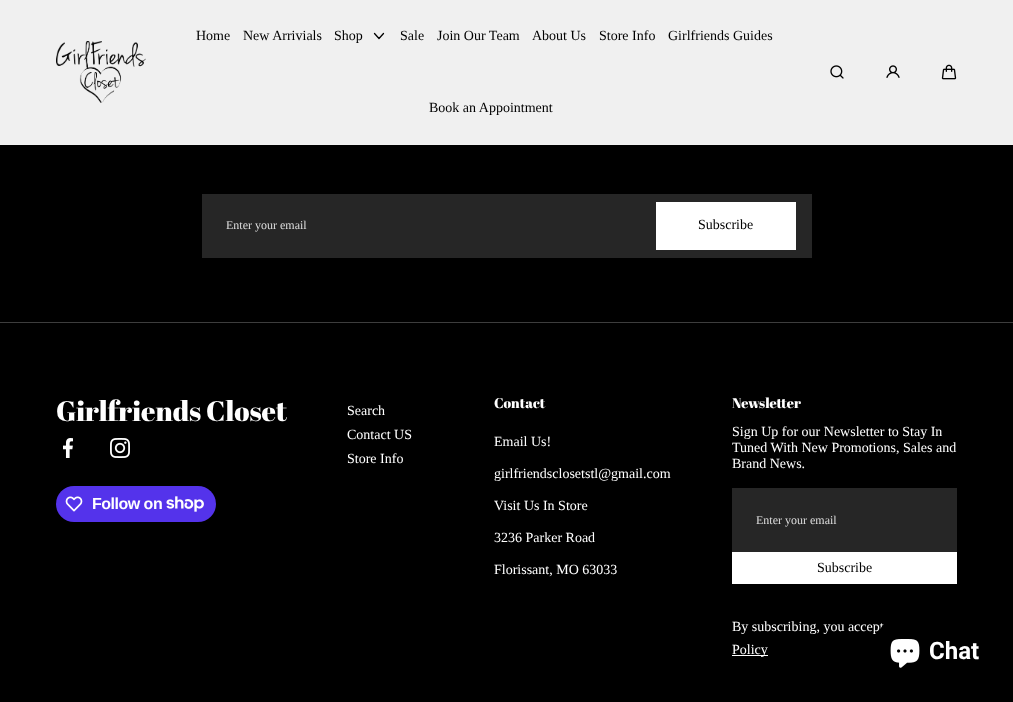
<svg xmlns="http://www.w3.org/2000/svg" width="1013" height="702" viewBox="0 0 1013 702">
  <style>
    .t1 { font: 14px Liberation Serif; fill: #000; }
    .t2 { font: 12px Liberation Serif; fill: #dfdfdf; }
    .t3 { font: 28px Abril Fatface; fill: #fff; }
    .t4 { font: bold 16px Liberation Sans; letter-spacing: -0.5px; fill: #fff; }
    .t5 { font: 14px Liberation Serif; fill: #fff; }
    .t6 { font: 14px Abril Fatface; fill: #fff; }
    .t7 { font: bold 24px Roboto; fill: #fff; }
  </style>
  <rect width="100%" height="100%" fill="#000"/>
  <rect x="0" y="0" width="1013" height="144" fill="#f0f0f0"/>
  <rect x="0" y="144" width="1013" height="1" fill="#f2f2f2"/>
  <image x="56" y="41" width="90" height="62" href="images/1.png"/>
  <text x="196" y="40" class="t1">Home</text>
  <text x="243" y="40" class="t1">New Arrivials</text>
  <text x="334" y="40" class="t1">Shop</text>
  <path d="M374.5 33.5L379 38.5L383.5 33.5" fill="none" stroke="#000" stroke-width="1.3" stroke-linecap="round" stroke-linejoin="round"/>
  <text x="400" y="40" class="t1">Sale</text>
  <text x="437" y="40" class="t1">Join Our Team</text>
  <text x="532" y="40" class="t1">About Us</text>
  <text x="599" y="40" class="t1">Store Info</text>
  <text x="668" y="40" class="t1">Girlfriends Guides</text>
  <text x="429" y="112" class="t1">Book an Appointment</text>
  <image x="830" y="65" width="14" height="14" href="images/2.png"/>
  <image x="886" y="65" width="14" height="13" href="images/3.png"/>
  <image x="941" y="64" width="16" height="16" href="images/4.png"/>
  <rect x="202" y="194" width="610" height="64" fill="#262626"/>
  <text x="226" y="229" class="t2">Enter your email</text>
  <rect x="656" y="202" width="140" height="48" fill="#fff"/>
  <text x="698" y="229" class="t1">Subscribe</text>
  <rect x="0" y="322" width="1013" height="1" fill="#3d3d3d"/>
  <text x="56" y="421" class="t3">Girlfriends Closet</text>
  <image x="63" y="438" width="10" height="20" href="images/5.png"/>
  <image x="110" y="438" width="20" height="20" href="images/6.png"/>
  <rect x="56" y="486" width="160" height="36" rx="18" fill="#5433eb"/>
  <image x="65" y="496" width="18" height="16" href="images/7.png"/>
  <text x="92" y="509" class="t4">Follow on</text>
  <image x="166" y="496" width="38" height="16" href="images/8.png"/>
  <text x="347" y="415" class="t5">Search</text>
  <text x="347" y="439" class="t5">Contact US</text>
  <text x="347" y="463" class="t5">Store Info</text>
  <text x="494" y="408" class="t6">Contact</text>
  <text x="494" y="446" class="t5">Email Us!</text>
  <text x="494" y="478" class="t5">girlfriendsclosetstl@gmail.com</text>
  <text x="494" y="510" class="t5">Visit Us In Store</text>
  <text x="494" y="542" class="t5">3236 Parker Road</text>
  <text x="494" y="574" class="t5">Florissant, MO 63033</text>
  <text x="732" y="408" class="t6">Newsletter</text>
  <text x="732" y="436" class="t5">Sign Up for our Newsletter to Stay In</text>
  <text x="732" y="452" class="t5">Tuned With New Promotions, Sales and</text>
  <text x="732" y="468" class="t5">Brand News.</text>
  <rect x="732" y="488" width="225" height="64" fill="#262626"/>
  <text x="756" y="524" class="t2">Enter your email</text>
  <rect x="732" y="552" width="225" height="32" fill="#fff"/>
  <text x="817" y="572" class="t1">Subscribe</text>
  <text x="732" y="631" class="t5">By subscribing, you accept</text>
  <rect x="732" y="655" width="36" height="1" fill="#fff"/>
  <text x="732" y="654" class="t5">Policy</text>
  <rect x="878" y="621" width="113" height="60" rx="16" fill="#00000026" filter="blur(2.5px)"/>
  <rect x="878" y="621" width="113" height="60" rx="16" fill="#000"/>
  <image x="890" y="639" width="30" height="29" href="images/9.png"/>
  <text x="929" y="659" class="t7">Chat</text>
</svg>
